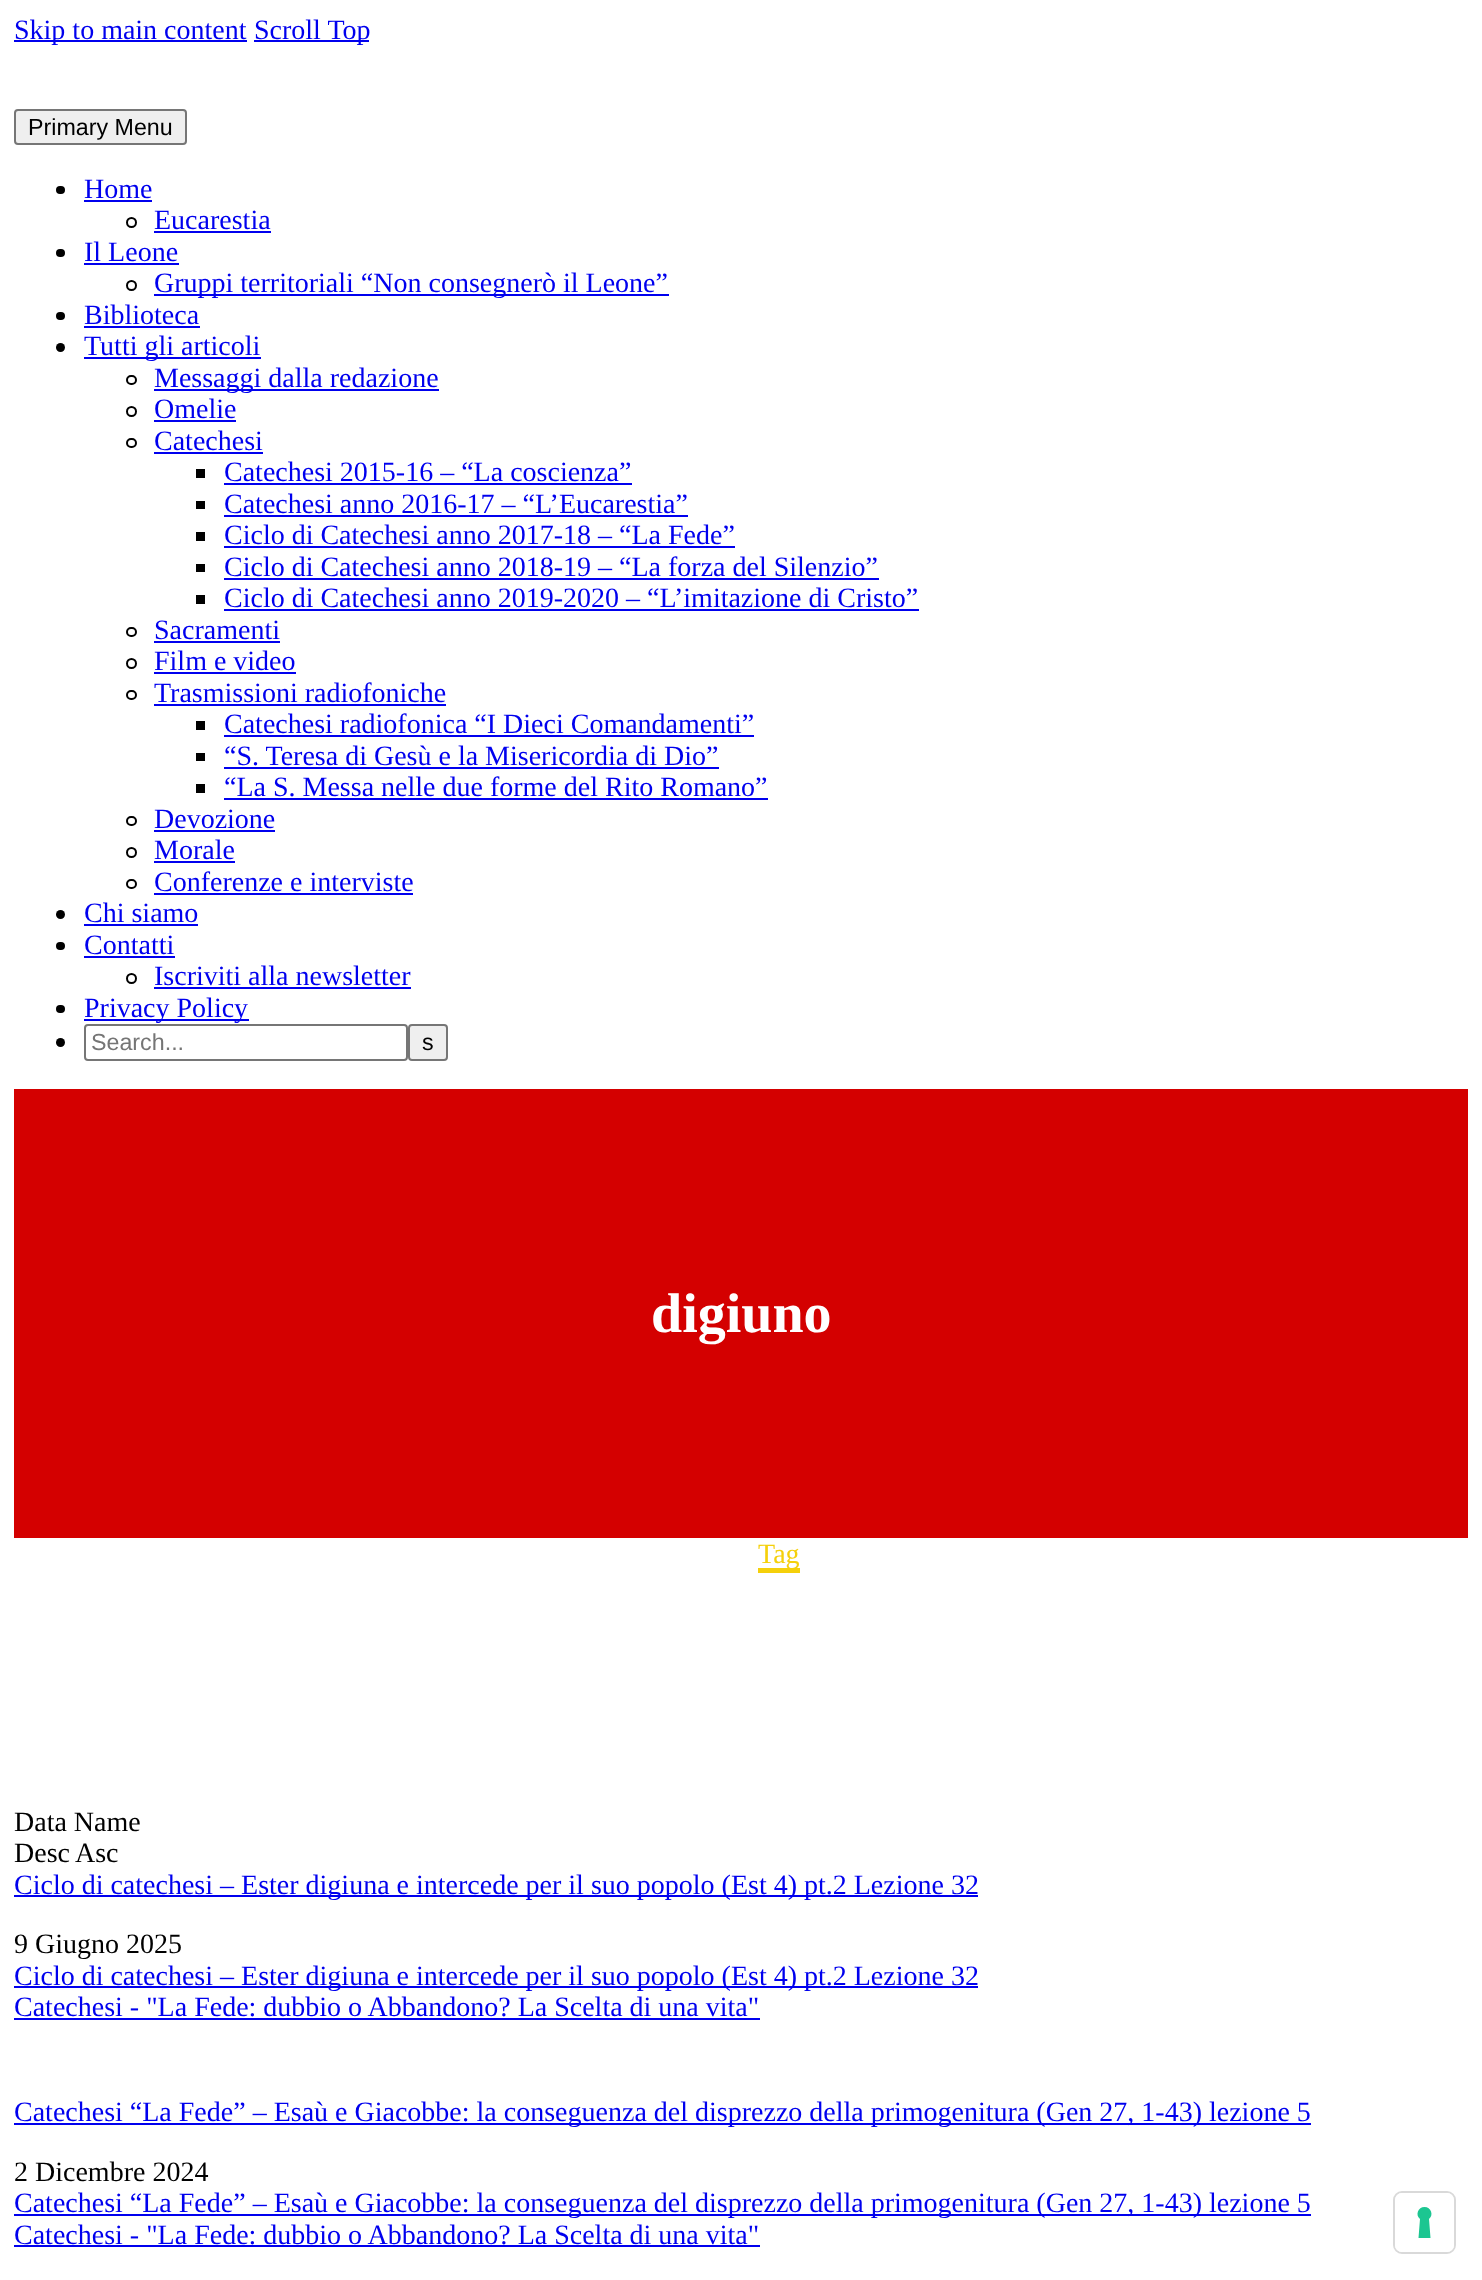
<svg xmlns="http://www.w3.org/2000/svg" width="1482" height="2280" viewBox="0 0 1482 2280">
  <style>
    .t1 { font: 28px Liberation Serif; fill: #00e; }
    .t2 { font: 23.25px Liberation Sans; fill: #000; }
    .t3 { font: 23.25px Liberation Sans; fill: #757575; }
    .t4 { font: bold 56px Liberation Serif; fill: #fff; }
    .t5 { font: 28px Liberation Serif; fill: #f5d00b; }
    .t6 { font: 28px Liberation Serif; fill: #000; }
  </style>
  <rect width="100%" height="100%" fill="#fff"/>
  <rect x="14" y="40" width="233" height="2" fill="#00e"/>
  <text x="14" y="39" class="t1">Skip to main content</text>
  <rect x="254" y="40" width="115" height="2" fill="#00e"/>
  <text x="254" y="39" class="t1">Scroll Top</text>
  <rect x="15" y="110" width="171" height="34" rx="3" fill="#efefef" stroke="#767676" stroke-width="2"/>
  <text x="28" y="135" class="t2">Primary Menu</text>
  <rect x="56" y="186" width="9" height="8" rx="4" fill="#000"/>
  <text x="84" y="198" class="t1">Home</text>
  <rect x="84" y="200" width="68" height="2" fill="#00e"/>
  <circle cx="131.5" cy="222.5" r="4.5" fill="none" stroke="#000" stroke-width="2"/>
  <text x="154" y="229" class="t1">Eucarestia</text>
  <rect x="154" y="231" width="117" height="2" fill="#00e"/>
  <rect x="56" y="249" width="9" height="8" rx="4" fill="#000"/>
  <text x="84" y="261" class="t1">Il Leone</text>
  <rect x="84" y="263" width="95" height="2" fill="#00e"/>
  <circle cx="131.5" cy="285.5" r="4.5" fill="none" stroke="#000" stroke-width="2"/>
  <rect x="154" y="294" width="515" height="2" fill="#00e"/>
  <text x="154" y="292" class="t1">Gruppi territoriali “Non consegnerò il Leone”</text>
  <rect x="56" y="312" width="9" height="8" rx="4" fill="#000"/>
  <text x="84" y="324" class="t1">Biblioteca</text>
  <rect x="84" y="326" width="116" height="2" fill="#00e"/>
  <circle cx="60.5" cy="347.5" r="4.5" fill="#000"/>
  <rect x="84" y="357" width="177" height="2" fill="#00e"/>
  <text x="84" y="355" class="t1">Tutti gli articoli</text>
  <rect x="127" y="376" width="9" height="8" rx="4" fill="none" stroke="#000" stroke-width="2"/>
  <rect x="154" y="389" width="285" height="2" fill="#00e"/>
  <text x="154" y="387" class="t1">Messaggi dalla redazione</text>
  <circle cx="131.5" cy="411.5" r="4.5" fill="none" stroke="#000" stroke-width="2"/>
  <text x="154" y="418" class="t1">Omelie</text>
  <rect x="154" y="420" width="82" height="2" fill="#00e"/>
  <rect x="127" y="439" width="9" height="8" rx="4" fill="none" stroke="#000" stroke-width="2"/>
  <text x="154" y="450" class="t1">Catechesi</text>
  <rect x="154" y="452" width="109" height="2" fill="#00e"/>
  <rect x="196" y="469" width="9" height="9" fill="#000"/>
  <text x="224" y="481" class="t1">Catechesi 2015-16 – “La coscienza”</text>
  <rect x="224" y="483" width="408" height="2" fill="#00e"/>
  <rect x="196" y="501" width="9" height="8" fill="#000"/>
  <text x="224" y="513" class="t1">Catechesi anno 2016-17 – “L’Eucarestia”</text>
  <rect x="224" y="515" width="464" height="2" fill="#00e"/>
  <rect x="196" y="532" width="9" height="9" fill="#000"/>
  <text x="224" y="544" class="t1">Ciclo di Catechesi anno 2017-18 – “La Fede”</text>
  <rect x="224" y="546" width="511" height="2" fill="#00e"/>
  <rect x="196" y="564" width="9" height="8" fill="#000"/>
  <text x="224" y="576" class="t1">Ciclo di Catechesi anno 2018-19 – “La forza del Silenzio”</text>
  <rect x="224" y="578" width="655" height="2" fill="#00e"/>
  <rect x="196" y="595" width="9" height="9" fill="#000"/>
  <text x="224" y="607" class="t1">Ciclo di Catechesi anno 2019-2020 – “L’imitazione di Cristo”</text>
  <rect x="224" y="609" width="695" height="2" fill="#00e"/>
  <rect x="127" y="628" width="9" height="8" rx="4" fill="none" stroke="#000" stroke-width="2"/>
  <text x="154" y="639" class="t1">Sacramenti</text>
  <rect x="154" y="641" width="126" height="2" fill="#00e"/>
  <circle cx="131.5" cy="663.5" r="4.5" fill="none" stroke="#000" stroke-width="2"/>
  <text x="154" y="670" class="t1">Film e video</text>
  <rect x="154" y="672" width="142" height="2" fill="#00e"/>
  <rect x="127" y="691" width="9" height="8" rx="4" fill="none" stroke="#000" stroke-width="2"/>
  <text x="154" y="702" class="t1">Trasmissioni radiofoniche</text>
  <rect x="154" y="704" width="292" height="2" fill="#00e"/>
  <rect x="196" y="721" width="9" height="9" fill="#000"/>
  <text x="224" y="733" class="t1">Catechesi radiofonica “I Dieci Comandamenti”</text>
  <rect x="224" y="735" width="530" height="2" fill="#00e"/>
  <rect x="196" y="753" width="9" height="8" fill="#000"/>
  <text x="224" y="765" class="t1">“S. Teresa di Gesù e la Misericordia di Dio”</text>
  <rect x="224" y="767" width="495" height="2" fill="#00e"/>
  <rect x="196" y="784" width="9" height="9" fill="#000"/>
  <text x="224" y="796" class="t1">“La S. Messa nelle due forme del Rito Romano”</text>
  <rect x="224" y="798" width="544" height="2" fill="#00e"/>
  <rect x="127" y="817" width="9" height="8" rx="4" fill="none" stroke="#000" stroke-width="2"/>
  <text x="154" y="828" class="t1">Devozione</text>
  <rect x="154" y="830" width="121" height="2" fill="#00e"/>
  <circle cx="131.5" cy="852.5" r="4.5" fill="none" stroke="#000" stroke-width="2"/>
  <text x="154" y="859" class="t1">Morale</text>
  <rect x="154" y="861" width="81" height="2" fill="#00e"/>
  <rect x="127" y="880" width="9" height="8" rx="4" fill="none" stroke="#000" stroke-width="2"/>
  <text x="154" y="891" class="t1">Conferenze e interviste</text>
  <rect x="154" y="893" width="259" height="2" fill="#00e"/>
  <circle cx="60.5" cy="914.5" r="4.5" fill="#000"/>
  <text x="84" y="922" class="t1">Chi siamo</text>
  <rect x="84" y="924" width="114" height="2" fill="#00e"/>
  <rect x="56" y="942" width="9" height="8" rx="4" fill="#000"/>
  <text x="84" y="954" class="t1">Contatti</text>
  <rect x="84" y="956" width="91" height="2" fill="#00e"/>
  <circle cx="131.5" cy="978.5" r="4.5" fill="none" stroke="#000" stroke-width="2"/>
  <text x="154" y="985" class="t1">Iscriviti alla newsletter</text>
  <rect x="154" y="987" width="257" height="2" fill="#00e"/>
  <rect x="56" y="1005" width="9" height="8" rx="4" fill="#000"/>
  <rect x="84" y="1019" width="165" height="2" fill="#00e"/>
  <text x="84" y="1017" class="t1">Privacy Policy</text>
  <circle cx="60.5" cy="1042.5" r="4.5" fill="#000"/>
  <rect x="85" y="1025" width="322" height="35" rx="3" fill="none" stroke="#767676" stroke-width="2"/>
  <text x="91" y="1050" class="t3">Search...</text>
  <rect x="409" y="1025" width="38" height="35" rx="3" fill="#efefef" stroke="#767676" stroke-width="2"/>
  <text x="422" y="1050" class="t2">s</text>
  <rect x="14" y="1089" width="1454" height="449" fill="#d40000"/>
  <text x="651" y="1332" class="t4">digiuno</text>
  <rect x="758" y="1568" width="42" height="5" fill="#f5d00b"/>
  <text x="758" y="1563" class="t5">Tag</text>
  <text x="14" y="1831" class="t6">Data Name</text>
  <text x="14" y="1862" class="t6">Desc</text>
  <text x="75" y="1862" class="t6">Asc</text>
  <rect x="14" y="1895" width="964" height="2" fill="#00e"/>
  <text x="14" y="1894" class="t1">Ciclo di catechesi – Ester digiuna e intercede per il suo popolo (Est 4) pt.2 Lezione 32</text>
  <text x="14" y="1953" class="t6">9 Giugno 2025</text>
  <rect x="14" y="1986" width="964" height="2" fill="#00e"/>
  <text x="14" y="1985" class="t1">Ciclo di catechesi – Ester digiuna e intercede per il suo popolo (Est 4) pt.2 Lezione 32</text>
  <text x="14" y="2016" class="t1">Catechesi - "La Fede: dubbio o Abbandono? La Scelta di una vita"</text>
  <rect x="14" y="2018" width="746" height="2" fill="#00e"/>
  <rect x="14" y="2123" width="1297" height="2" fill="#00e"/>
  <text x="14" y="2121" class="t1">Catechesi “La Fede” – Esaù e Giacobbe: la conseguenza del disprezzo della primogenitura (Gen 27, 1-43) lezione 5</text>
  <text x="14" y="2181" class="t6">2 Dicembre 2024</text>
  <rect x="14" y="2214" width="1297" height="2" fill="#00e"/>
  <text x="14" y="2212" class="t1">Catechesi “La Fede” – Esaù e Giacobbe: la conseguenza del disprezzo della primogenitura (Gen 27, 1-43) lezione 5</text>
  <text x="14" y="2244" class="t1">Catechesi - "La Fede: dubbio o Abbandono? La Scelta di una vita"</text>
  <rect x="14" y="2245" width="746" height="2" fill="#00e"/>
  <rect x="1394" y="2192" width="61" height="61" rx="8" fill="none" stroke="#d9d9d9" stroke-width="2"/>
  <rect x="1395" y="2193" width="59" height="59" rx="7" fill="#fff"/>
  <path d="M1424.5 2207C1431 2207 1434 2215 1429 2219L1430.5 2238H1418.5L1420 2219C1415 2215 1418 2207 1424.5 2207Z" fill="#1cc691" fill-rule="evenodd"/>
</svg>
